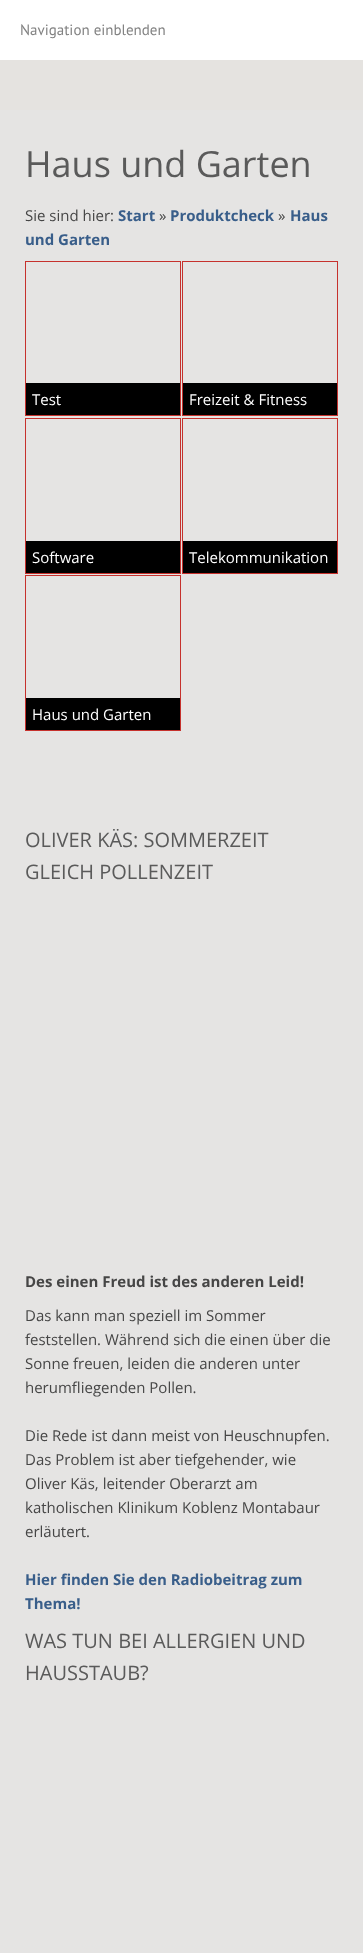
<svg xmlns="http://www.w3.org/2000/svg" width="363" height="1953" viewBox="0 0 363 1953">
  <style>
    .t1 { font: 15px PT Sans; fill: #828282; }
    .t2 { font: 36px Open Sans; fill: #5a5a5a; }
    .t3 { font: 15px Open Sans; fill: #464646; }
    .t4 { font: bold 15px Open Sans; fill: #395e8a; }
    .t5 { font: 15px Open Sans; fill: #fff; }
    .t6 { font: 20px Open Sans; fill: #5a5a5a; }
    .t7 { font: bold 15px Open Sans; fill: #464646; }
  </style>
  <rect width="100%" height="100%" fill="#fff"/>
  <text x="20" y="35" class="t1">Navigation einblenden</text>
  <rect x="0" y="60" width="363" height="50" fill="#e5e3e0"/>
  <rect x="0" y="110" width="363" height="1843" fill="#e5e4e3"/>
  <text x="25" y="177" class="t2">Haus und Garten</text>
  <text x="25" y="221" class="t3">Sie sind hier:</text>
  <text x="118" y="221" class="t4">Start</text>
  <text x="159" y="221" class="t3">»</text>
  <text x="170" y="221" class="t4">Produktcheck</text>
  <text x="278" y="221" class="t3">»</text>
  <text x="290" y="221" class="t4">Haus</text>
  <text x="25" y="245" class="t4">und Garten</text>
  <rect x="25.5" y="261.5" width="155" height="154" fill="none" stroke="#c6312d"/>
  <rect x="26" y="383" width="154" height="32" fill="#000"/>
  <text x="32" y="405" class="t5">Test</text>
  <rect x="182.5" y="261.5" width="155" height="154" fill="none" stroke="#c6312d"/>
  <rect x="183" y="383" width="154" height="32" fill="#000"/>
  <text x="189" y="405" class="t5">Freizeit &amp; Fitness</text>
  <rect x="25.5" y="418.5" width="155" height="155" fill="none" stroke="#c6312d"/>
  <rect x="26" y="541" width="154" height="32" fill="#000"/>
  <text x="32" y="563" class="t5">Software</text>
  <rect x="182.5" y="418.5" width="155" height="155" fill="none" stroke="#c6312d"/>
  <rect x="183" y="541" width="154" height="32" fill="#000"/>
  <text x="189" y="563" class="t5">Telekommunikation</text>
  <rect x="25.5" y="575.5" width="155" height="155" fill="none" stroke="#c6312d"/>
  <rect x="26" y="698" width="154" height="32" fill="#000"/>
  <text x="32" y="720" class="t5">Haus und Garten</text>
  <text x="25" y="847" class="t6">OLIVER KÄS: SOMMERZEIT</text>
  <text x="25" y="879" class="t6">GLEICH POLLENZEIT</text>
  <text x="25" y="1287" class="t7">Des einen Freud ist des anderen Leid!</text>
  <text x="25" y="1321" class="t3">Das kann man speziell im Sommer</text>
  <text x="25" y="1345" class="t3">feststellen. Während sich die einen über die</text>
  <text x="25" y="1369" class="t3">Sonne freuen, leiden die anderen unter</text>
  <text x="25" y="1393" class="t3">herumfliegenden Pollen.</text>
  <text x="25" y="1441" class="t3">Die Rede ist dann meist von Heuschnupfen.</text>
  <text x="25" y="1465" class="t3">Das Problem ist aber tiefgehender, wie</text>
  <text x="25" y="1489" class="t3">Oliver Käs, leitender Oberarzt am</text>
  <text x="25" y="1513" class="t3">katholischen Klinikum Koblenz Montabaur</text>
  <text x="25" y="1537" class="t3">erläutert.</text>
  <text x="25" y="1585" class="t4">Hier finden Sie den Radiobeitrag zum</text>
  <text x="25" y="1609" class="t4">Thema!</text>
  <text x="25" y="1648" class="t6">WAS TUN BEI ALLERGIEN UND</text>
  <text x="25" y="1680" class="t6">HAUSSTAUB?</text>
</svg>
